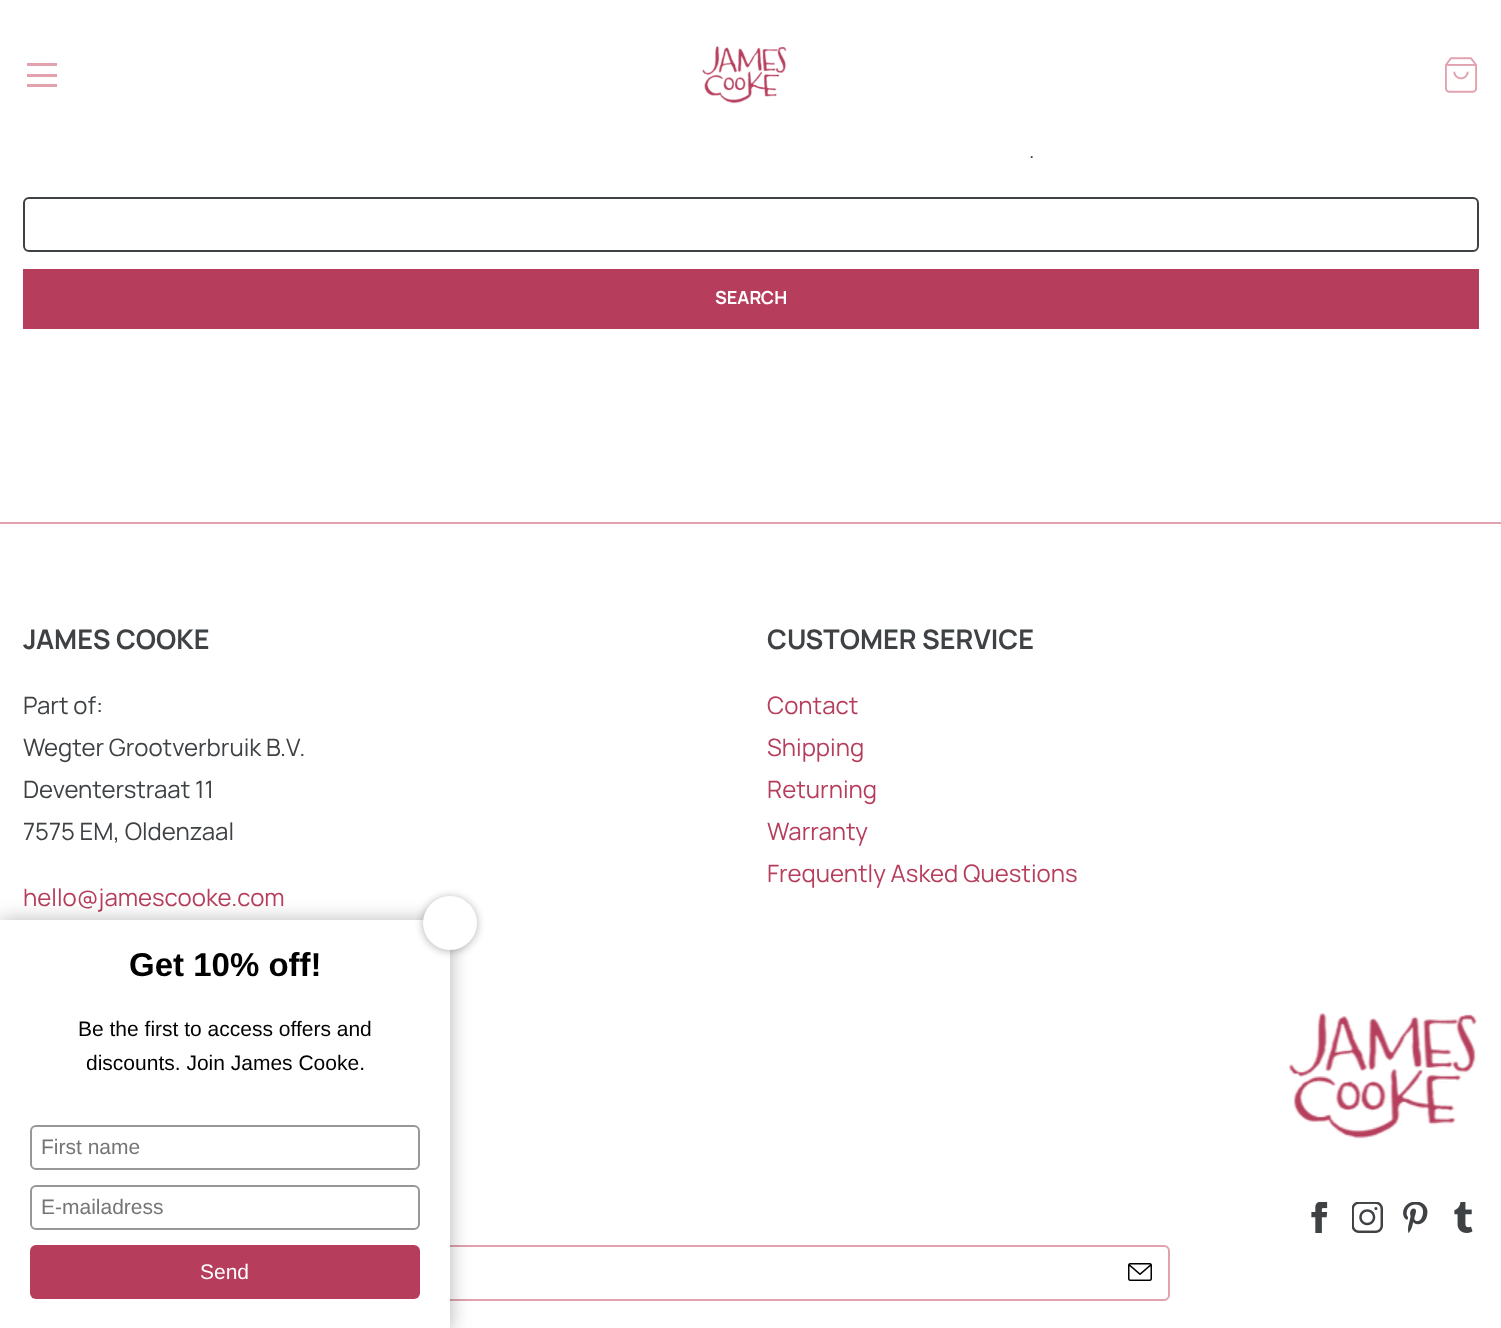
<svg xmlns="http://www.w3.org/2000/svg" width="1501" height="1328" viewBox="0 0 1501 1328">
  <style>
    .t1 { font: 21px Manrope; fill: #3f4244; }
    .t2 { font: bold 18px Manrope; fill: #fff; }
    .t3 { font: bold 27px Manrope; fill: #3f4244; }
    .t4 { font: 24px Manrope; fill: #3f4244; }
    .t5 { font: 24px Manrope; fill: #b63e5c; }
    .t6 { font: bold 33px Liberation Sans; fill: #000; }
    .t7 { font: 21px Liberation Sans; fill: #000; }
    .t8 { font: 21px Liberation Sans; fill: #757575; }
    .t9 { font: 21px Liberation Sans; fill: #fff; }
  </style>
  <rect width="100%" height="100%" fill="#fff"/>
  <rect x="27" y="74" width="30" height="3" fill="#e1a1ad"/>
  <rect x="27" y="63" width="30" height="3" fill="#e1a1ad"/>
  <rect x="27" y="84" width="30" height="3" fill="#e1a1ad"/>
  <image x="702" y="46" width="85" height="58" href="images/1.png"/>
  <image x="1445" y="57" width="32" height="36" href="images/2.png"/>
  <text x="1029" y="158" class="t1">.</text>
  <rect x="24" y="198" width="1454" height="53" rx="5" fill="none" stroke="#3f4244" stroke-width="2"/>
  <rect x="23" y="269" width="1456" height="60" fill="#b63e5c"/>
  <text x="715" y="304" class="t2">SEARCH</text>
  <rect x="0" y="522" width="1501" height="2" fill="#e1a1ad"/>
  <text x="23" y="649" class="t3">JAMES COOKE</text>
  <text x="23" y="714" class="t4">Part of:</text>
  <text x="23" y="756" class="t4">Wegter Grootverbruik B.V.</text>
  <text x="23" y="798" class="t4">Deventerstraat 11</text>
  <text x="23" y="840" class="t4">7575 EM, Oldenzaal</text>
  <text x="23" y="906" class="t5">hello@jamescooke.com</text>
  <text x="767" y="649" class="t3">CUSTOMER SERVICE</text>
  <text x="767" y="714" class="t5">Contact</text>
  <text x="767" y="756" class="t5">Shipping</text>
  <text x="767" y="798" class="t5">Returning</text>
  <text x="767" y="840" class="t5">Warranty</text>
  <text x="767" y="882" class="t5">Frequently Asked Questions</text>
  <image x="1288" y="1013" width="189" height="126" href="images/3.png"/>
  <image x="1311" y="1202" width="17" height="31" href="images/4.png"/>
  <image x="1352" y="1202" width="31" height="31" href="images/5.png"/>
  <image x="1403" y="1202" width="25" height="31" href="images/6.png"/>
  <image x="1454" y="1202" width="19" height="31" href="images/7.png"/>
  <rect x="24" y="1246" width="1145" height="54" rx="5" fill="none" stroke="#e1a1ad" stroke-width="2"/>
  <image x="1128" y="1263" width="24" height="18" href="images/8.png"/>
  <rect x="0" y="921" width="450" height="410" fill="#0000004d" filter="blur(10px)"/>
  <rect x="0" y="920" width="450" height="408" fill="#fff"/>
  <rect x="423" y="897" width="54" height="54" rx="27" fill="#0000004d" filter="blur(4px)"/>
  <circle cx="450" cy="923" r="27" fill="#fff"/>
  <text x="129" y="976" class="t6">Get 10% off!</text>
  <text x="78" y="1036" class="t7">Be the first to access offers and</text>
  <text x="86" y="1070" class="t7">discounts. Join James Cooke.</text>
  <rect x="31" y="1126" width="388" height="43" rx="5" fill="none" stroke="#979797" stroke-width="2"/>
  <text x="41" y="1154" class="t8">First name</text>
  <rect x="31" y="1186" width="388" height="43" rx="5" fill="none" stroke="#979797" stroke-width="2"/>
  <text x="41" y="1214" class="t8">E-mailadress</text>
  <rect x="30" y="1245" width="390" height="54" rx="6" fill="#b63e5c"/>
  <text x="200" y="1279" class="t9">Send</text>
</svg>
